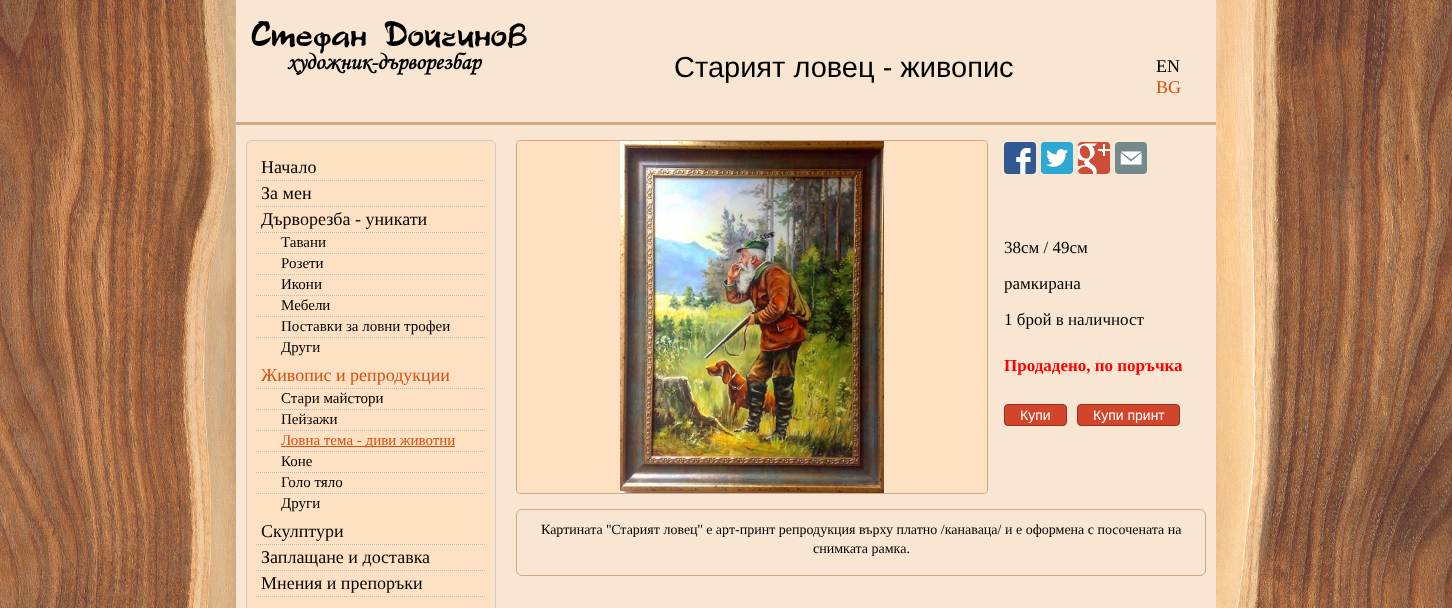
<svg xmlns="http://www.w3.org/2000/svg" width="1452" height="608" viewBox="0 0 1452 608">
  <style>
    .t1 { font: bold 35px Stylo; fill: #000; }
    .t2 { font: italic bold 23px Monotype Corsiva; fill: #000; }
    .t3 { font: 29px Liberation Sans; fill: #000; }
    .t4 { font: 18px Liberation Serif; fill: #000; }
    .t5 { font: 18px Liberation Serif; fill: #da4f11; }
    .t6 { font: 15px Liberation Serif; fill: #000; }
    .t7 { font: 15px Liberation Serif; fill: #da4f11; }
    .t8 { font: 17px Liberation Serif; fill: #000; }
    .t9 { font: bold 17px Liberation Serif; fill: #f00; }
    .t10 { font: 14px Liberation Sans; fill: #fff; }
    .t11 { font: 14px Liberation Serif; fill: #000; }
  </style>
  <rect width="100%" height="100%" fill="#fff"/>
  <image x="0" y="0" width="1452" height="608" href="images/1.png"/>
  <rect x="236" y="0" width="980" height="608" fill="#f8e6d2"/>
  <rect x="236" y="122" width="980" height="3" fill="#cea981"/>
  <text x="251" y="46" class="t1">Стефан Дойчинов</text>
  <text x="287" y="69" class="t2">художник-дърворезбар</text>
  <text x="674" y="77" class="t3">Старият ловец - живопис</text>
  <text x="1156" y="72" class="t4">EN</text>
  <text x="1156" y="93" class="t5">BG</text>
  <rect x="246.5" y="140.5" width="249" height="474" rx="5.5" fill="#fde1c2" stroke="#cbcbcb"/>
  <path d="M256 180.5H486" fill="none" stroke="#bbb" stroke-dasharray="1 1"/>
  <text x="261" y="173" class="t4">Начало</text>
  <path d="M256 206.5H486" fill="none" stroke="#bbb" stroke-dasharray="1 1"/>
  <text x="261" y="199" class="t4">За мен</text>
  <path d="M256 232.5H486" fill="none" stroke="#bbb" stroke-dasharray="1 1"/>
  <text x="261" y="225" class="t4">Дърворезба - уникати</text>
  <path d="M256 253.5H486" fill="none" stroke="#bbb" stroke-dasharray="1 1"/>
  <text x="281" y="247" class="t6">Тавани</text>
  <path d="M256 274.5H486" fill="none" stroke="#bbb" stroke-dasharray="1 1"/>
  <text x="281" y="268" class="t6">Розети</text>
  <path d="M256 295.5H486" fill="none" stroke="#bbb" stroke-dasharray="1 1"/>
  <text x="281" y="289" class="t6">Икони</text>
  <path d="M256 316.5H486" fill="none" stroke="#bbb" stroke-dasharray="1 1"/>
  <text x="281" y="310" class="t6">Мебели</text>
  <path d="M256 337.5H486" fill="none" stroke="#bbb" stroke-dasharray="1 1"/>
  <text x="281" y="331" class="t6">Поставки за ловни трофеи</text>
  <text x="281" y="352" class="t6">Други</text>
  <path d="M256 388.5H486" fill="none" stroke="#bbb" stroke-dasharray="1 1"/>
  <text x="261" y="381" class="t5">Живопис и репродукции</text>
  <path d="M256 409.5H486" fill="none" stroke="#bbb" stroke-dasharray="1 1"/>
  <text x="281" y="403" class="t6">Стари майстори</text>
  <path d="M256 430.5H486" fill="none" stroke="#bbb" stroke-dasharray="1 1"/>
  <text x="281" y="424" class="t6">Пейзажи</text>
  <path d="M256 451.5H486" fill="none" stroke="#bbb" stroke-dasharray="1 1"/>
  <rect x="281" y="446" width="174" height="1" fill="#da4f11"/>
  <text x="281" y="445" class="t7">Ловна тема - диви животни</text>
  <path d="M256 472.5H486" fill="none" stroke="#bbb" stroke-dasharray="1 1"/>
  <text x="281" y="466" class="t6">Коне</text>
  <path d="M256 493.5H486" fill="none" stroke="#bbb" stroke-dasharray="1 1"/>
  <text x="281" y="487" class="t6">Голо тяло</text>
  <text x="281" y="508" class="t6">Други</text>
  <path d="M256 544.5H486" fill="none" stroke="#bbb" stroke-dasharray="1 1"/>
  <text x="261" y="537" class="t4">Скулптури</text>
  <path d="M256 570.5H486" fill="none" stroke="#bbb" stroke-dasharray="1 1"/>
  <text x="261" y="563" class="t4">Заплащане и доставка</text>
  <path d="M256 596.5H486" fill="none" stroke="#bbb" stroke-dasharray="1 1"/>
  <text x="261" y="589" class="t4">Мнения и препоръки</text>
  <rect x="516.5" y="140.5" width="471" height="353" rx="3.5" fill="none" stroke="#cea981"/>
  <image x="517" y="141" width="470" height="352" href="images/2.png"/>
  <image x="1004" y="142" width="32" height="32" href="images/3.png"/>
  <image x="1041" y="142" width="32" height="32" href="images/4.png"/>
  <image x="1078" y="142" width="32" height="32" href="images/5.png"/>
  <image x="1115" y="142" width="32" height="32" href="images/6.png"/>
  <text x="1004" y="253" class="t8">38см / 49см</text>
  <text x="1004" y="289" class="t8">рамкирана</text>
  <text x="1004" y="325" class="t8">1 брой в наличност</text>
  <text x="1004" y="371" class="t9">Продадено, по поръчка</text>
  <rect x="1004.5" y="404.5" width="62" height="21" rx="3.5" fill="#d2452a" stroke="#963024"/>
  <text x="1020" y="420" class="t10">Купи</text>
  <rect x="1077.5" y="404.5" width="102" height="21" rx="3.5" fill="#d2452a" stroke="#963024"/>
  <text x="1093" y="420" class="t10">Купи принт</text>
  <rect x="516.5" y="509.5" width="689" height="66" rx="5.5" fill="none" stroke="#cea981"/>
  <text x="541" y="534" class="t11">Картината ''Старият ловец'' е арт-принт репродукция върху платно /канаваца/ и е оформена с посочената на</text>
  <text x="813" y="553" class="t11">снимката рамка.</text>
</svg>
